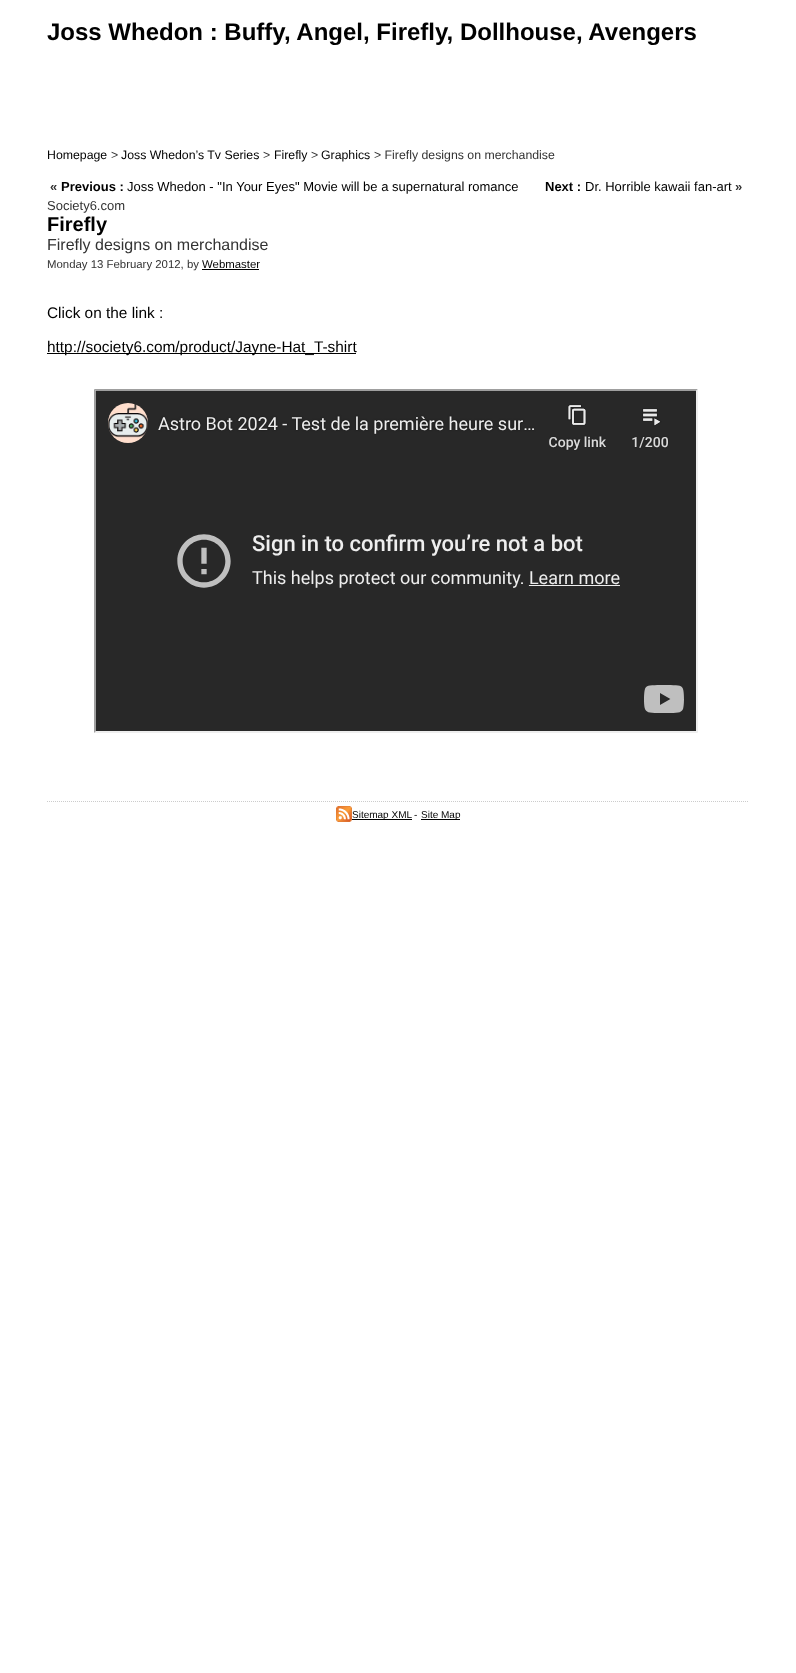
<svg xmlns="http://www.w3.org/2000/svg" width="796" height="1673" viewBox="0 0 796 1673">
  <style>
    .t1 { font: bold 24px Liberation Sans; fill: #000; }
    .t2 { font: 12.3px Liberation Sans; fill: #000; }
    .t3 { font: 12.3px Liberation Sans; fill: #333; }
    .t4 { font: bold 13px Liberation Sans; fill: #333; }
    .t5 { font: bold 13px Liberation Sans; fill: #000; }
    .t6 { font: 13px Liberation Sans; fill: #000; }
    .t7 { font: 13px Liberation Sans; fill: #333; }
    .t8 { font: bold 20px Liberation Sans; fill: #000; }
    .t9 { font: 16px Liberation Sans; fill: #333; }
    .t10 { font: 11.4px Liberation Sans; fill: #333; }
    .t11 { font: 11.4px Liberation Sans; fill: #000; }
    .t12 { font: 15.4px Liberation Sans; fill: #000; }
    .t13 { font: 10px Liberation Sans; fill: #000; }
  </style>
  <rect width="100%" height="100%" fill="#fff"/>
  <text x="47" y="40" class="t1">Joss Whedon : Buffy, Angel, Firefly, Dollhouse, Avengers</text>
  <text x="47" y="159" class="t2">Homepage</text>
  <text x="111" y="159" class="t3">&gt;</text>
  <text x="121" y="159" class="t2">Joss Whedon’s Tv Series</text>
  <text x="263" y="159" class="t3">&gt;</text>
  <text x="274" y="159" class="t2">Firefly</text>
  <text x="311" y="159" class="t3">&gt;</text>
  <text x="321" y="159" class="t2">Graphics</text>
  <text x="374" y="159" class="t3">&gt; Firefly designs on merchandise</text>
  <text x="50" y="191" class="t4">«</text>
  <text x="61" y="191" class="t5">Previous :</text>
  <text x="127" y="191" class="t6">Joss Whedon - "In Your Eyes" Movie will be a supernatural romance</text>
  <text x="545" y="191" class="t5">Next :</text>
  <text x="585" y="191" class="t6">Dr. Horrible kawaii fan-art</text>
  <text x="735" y="191" class="t4">»</text>
  <text x="47" y="210" class="t7">Society6.com</text>
  <text x="47" y="231" class="t8">Firefly</text>
  <text x="47" y="250" class="t9">Firefly designs on merchandise</text>
  <text x="47" y="268" class="t10">Monday 13 February 2012, by</text>
  <text x="202" y="268" class="t11">Webmaster</text>
  <rect x="202" y="269" width="57" height="1" fill="#000"/>
  <text x="47" y="318" class="t12">Click on the link :</text>
  <rect x="47" y="353" width="309" height="1" fill="#000"/>
  <text x="47" y="352" class="t12">http://society6.com/product/Jayne-Hat_T-shirt</text>
  <path d="M94 389H698L696 391H96Z" fill="#9f9f9f"/>
  <path d="M698 389V733L696 731V391Z" fill="#eee"/>
  <path d="M698 733H94L96 731H696Z" fill="#eee"/>
  <path d="M94 733V389L96 391V731Z" fill="#9f9f9f"/>
  <image x="96" y="391" width="600" height="340" href="images/1.png"/>
  <path d="M47 801.5H749" fill="none" stroke="#ccc" stroke-dasharray="1 1"/>
  <image x="336" y="806" width="16" height="16" href="images/2.png"/>
  <rect x="352" y="819" width="60" height="1" fill="#000"/>
  <text x="352" y="818" class="t13">Sitemap XML</text>
  <text x="414" y="818" class="t13">-</text>
  <rect x="421" y="819" width="39" height="1" fill="#000"/>
  <text x="421" y="818" class="t13">Site Map</text>
</svg>
